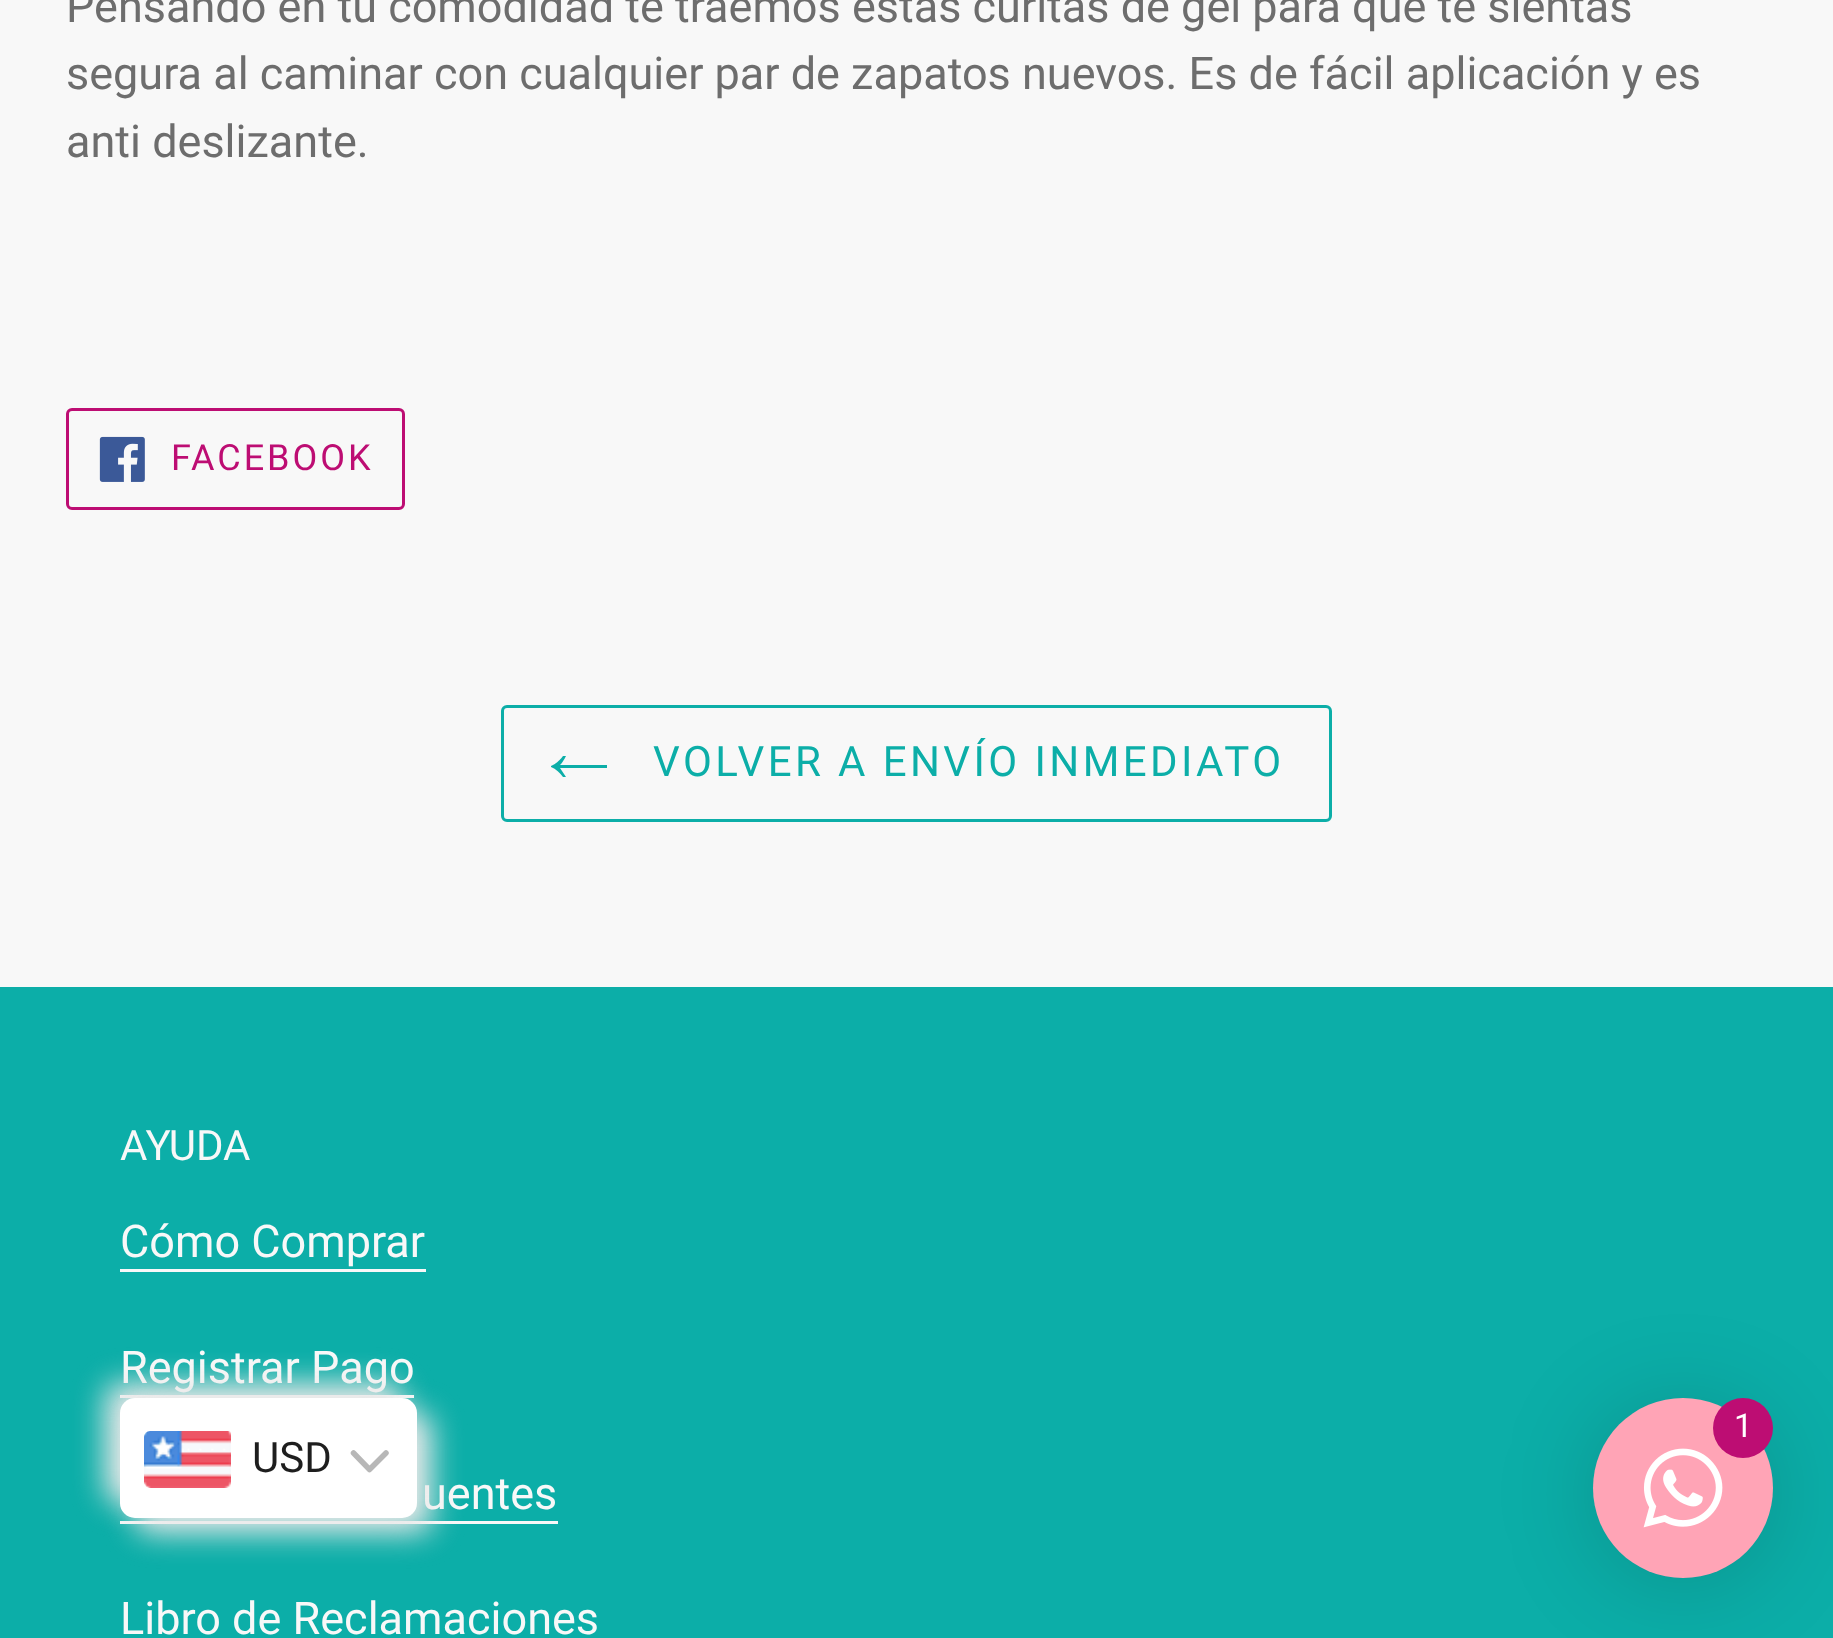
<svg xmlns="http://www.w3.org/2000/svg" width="1833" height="1638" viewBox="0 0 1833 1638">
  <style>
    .t1 { font: 45px Roboto; fill: #6d6d6d; }
    .t2 { font: 36px Roboto; letter-spacing: 3px; fill: #bd0d73; }
    .t3 { font: 42px Roboto; letter-spacing: 3.4px; fill: #0caea8; }
    .t4 { font: 42px Roboto; fill: #f8f8f8; }
    .t5 { font: 45px Roboto; fill: #f8f8f8; }
    .t6 { font: 33px Roboto; fill: #fff; }
    .t7 { font: 42px Roboto; fill: #1e1e1e; }
  </style>
  <rect width="100%" height="100%" fill="#f8f8f8"/>
  <text x="66" y="22" class="t1">Pensando en tu comodidad te traemos estas curitas de gel para que te sientas</text>
  <text x="66" y="89" class="t1">segura al caminar con cualquier par de zapatos nuevos. Es de fácil aplicación y es</text>
  <text x="66" y="157" class="t1">anti deslizante.</text>
  <rect x="67.5" y="409.5" width="336" height="99" rx="4.5" fill="none" stroke="#bd0d73" stroke-width="3"/>
  <image x="99" y="436" width="46" height="46" href="images/1.png"/>
  <text x="171" y="470" class="t2">FACEBOOK</text>
  <rect x="502.5" y="706.5" width="828" height="114" rx="4.5" fill="none" stroke="#0caea8" stroke-width="3"/>
  <path d="M563 777C560 773 556 769 551 767V766C556 764 560 760 563 756H566C564 760 562 763 560 765H607V768H560C562 771 564 774 566 777Z" fill="#0caea8" fill-rule="evenodd"/>
  <text x="653" y="776" class="t3">VOLVER A ENVÍO INMEDIATO</text>
  <rect x="0" y="987" width="1833" height="651" fill="#0caea8"/>
  <text x="120" y="1160" class="t4">AYUDA</text>
  <text x="120" y="1257" class="t5">Cómo Comprar</text>
  <rect x="120" y="1269" width="306" height="3" fill="#f8f8f8"/>
  <text x="120" y="1383" class="t5">Registrar Pago</text>
  <rect x="120" y="1395" width="294" height="3" fill="#f8f8f8"/>
  <text x="422" y="1509" class="t5">uentes</text>
  <rect x="120" y="1521" width="438" height="3" fill="#f8f8f8"/>
  <text x="120" y="1634" class="t5">Libro de Reclamaciones</text>
  <rect x="1593" y="1404" width="180" height="180" rx="90" fill="#00000029" filter="blur(48px)"/>
  <circle cx="1683" cy="1488" r="90" fill="#ffa4b6"/>
  <image x="1643" y="1448" width="80" height="80" href="images/2.png"/>
  <circle cx="1743" cy="1428" r="30" fill="#bd0d73"/>
  <text x="1734" y="1437" class="t6">1</text>
  <rect x="105" y="1383" width="297" height="120" rx="15" fill="#e8e8e8" filter="blur(15px)"/>
  <rect x="135" y="1413" width="297" height="120" rx="15" fill="#e8e8e8" filter="blur(15px)"/>
  <rect x="120" y="1398" width="297" height="120" rx="15" fill="#fff"/>
  <image x="144" y="1431" width="87" height="57" href="images/3.png"/>
  <text x="252" y="1472" class="t7">USD</text>
  <path d="M353.5 1453L369.5 1469.5L386 1453" fill="none" stroke="#b7b7b7" stroke-width="5.5" stroke-linecap="round" stroke-linejoin="round"/>
</svg>
